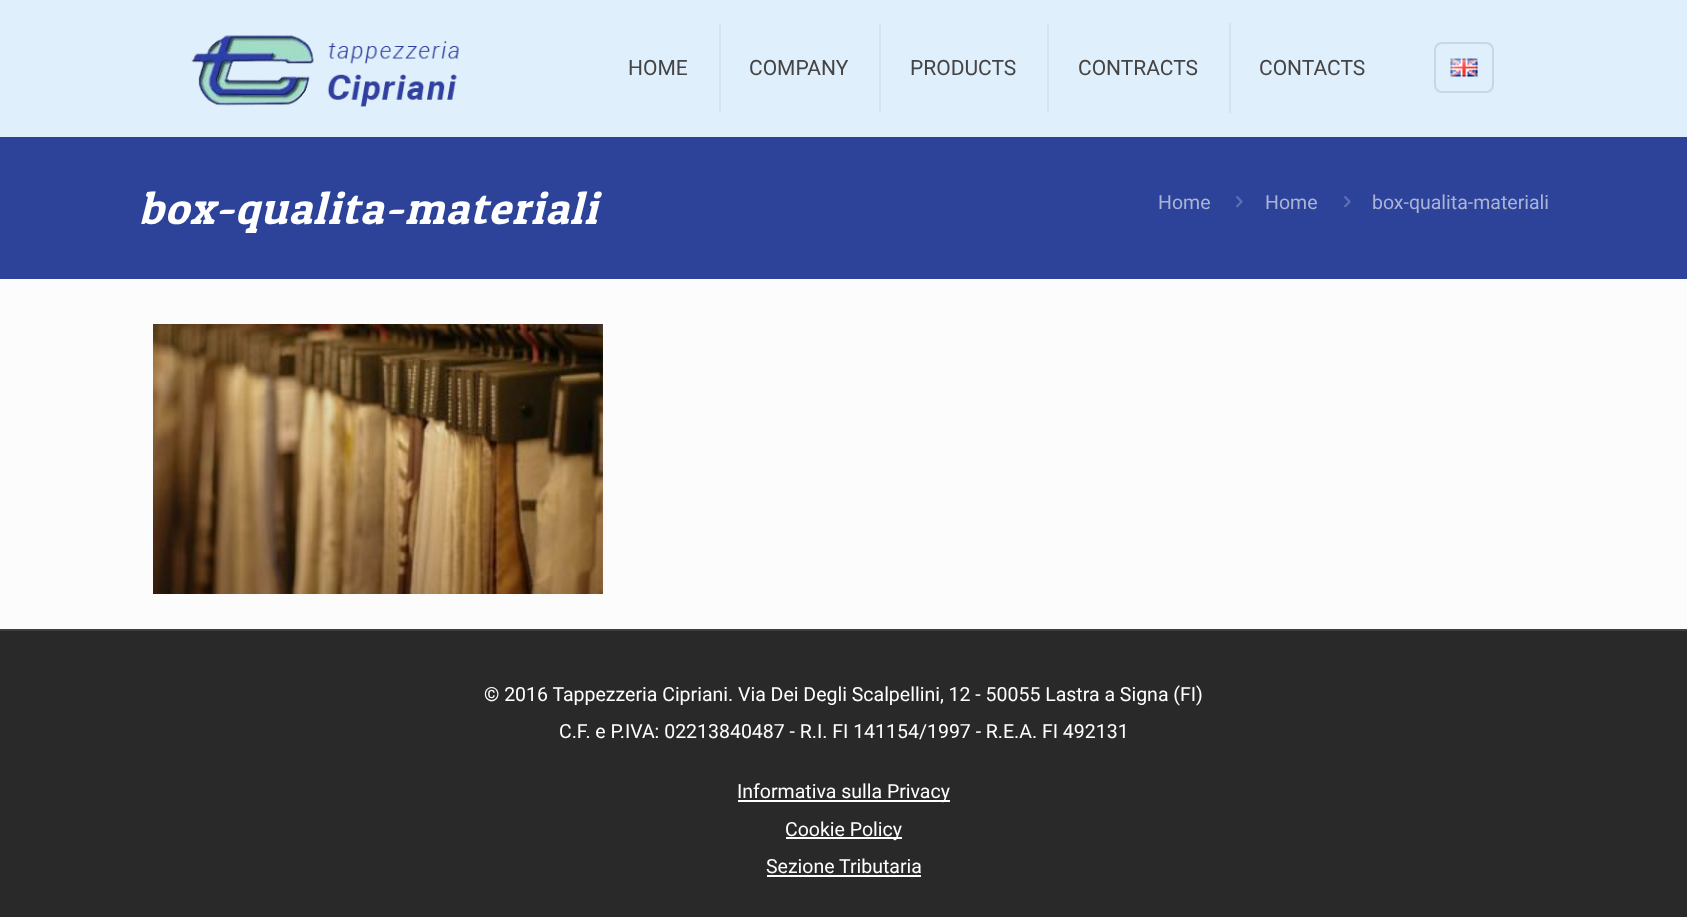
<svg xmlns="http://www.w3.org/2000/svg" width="1687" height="917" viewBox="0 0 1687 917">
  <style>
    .t1 { font: 21px Roboto; fill: #444; }
    .t2 { font: italic 45px Patua One; letter-spacing: 1.5px; fill: #fff; }
    .t3 { font: 19.5px Roboto; fill: #abb4d6; }
    .t4 { font: 19.5px Roboto; fill: #fff; }
  </style>
  <rect width="100%" height="100%" fill="#fcfcfc"/>
  <rect x="0" y="0" width="1687" height="137" fill="#e0effc"/>
  <image x="191" y="35" width="269" height="72" href="images/1.png"/>
  <rect x="719" y="23" width="2" height="90" fill="#d5e3ef"/>
  <text x="628" y="75" class="t1">HOME</text>
  <rect x="879" y="23" width="2" height="90" fill="#d5e3ef"/>
  <text x="749" y="75" class="t1">COMPANY</text>
  <rect x="1047" y="23" width="2" height="90" fill="#d5e3ef"/>
  <text x="910" y="75" class="t1">PRODUCTS</text>
  <rect x="1229" y="23" width="2" height="90" fill="#d5e3ef"/>
  <text x="1078" y="75" class="t1">CONTRACTS</text>
  <text x="1259" y="75" class="t1">CONTACTS</text>
  <rect x="1435" y="43" width="58" height="49" rx="7" fill="none" stroke="#cad7e3" stroke-width="2"/>
  <image x="1450" y="58" width="28" height="19" href="images/2.png"/>
  <rect x="0" y="137" width="1687" height="142" fill="#2d4399"/>
  <text x="139" y="224" class="t2">box-qualita-materiali</text>
  <text x="1158" y="209" class="t3">Home</text>
  <image x="1236" y="196" width="7" height="12" href="images/3.png"/>
  <text x="1265" y="209" class="t3">Home</text>
  <image x="1344" y="196" width="7" height="12" href="images/3.png"/>
  <text x="1372" y="209" class="t3">box-qualita-materiali</text>
  <image x="153" y="324" width="450" height="270" href="images/4.png"/>
  <rect x="0" y="631" width="1687" height="286" fill="#292929"/>
  <rect x="0" y="629" width="1687" height="2" fill="#3e3e3e"/>
  <text x="484" y="701" class="t4">© 2016 Tappezzeria Cipriani. Via Dei Degli Scalpellini, 12 - 50055 Lastra a Signa (FI)</text>
  <text x="559" y="738" class="t4">C.F. e P.IVA: 02213840487 - R.I. FI 141154/1997 - R.E.A. FI 492131</text>
  <rect x="738" y="800" width="212" height="2" fill="#fff"/>
  <text x="737" y="798" class="t4">Informativa sulla Privacy</text>
  <rect x="786" y="837" width="116" height="2" fill="#fff"/>
  <text x="785" y="836" class="t4">Cookie Policy</text>
  <text x="766" y="873" class="t4">Sezione Tributaria</text>
  <rect x="767" y="875" width="154" height="2" fill="#fff"/>
</svg>
